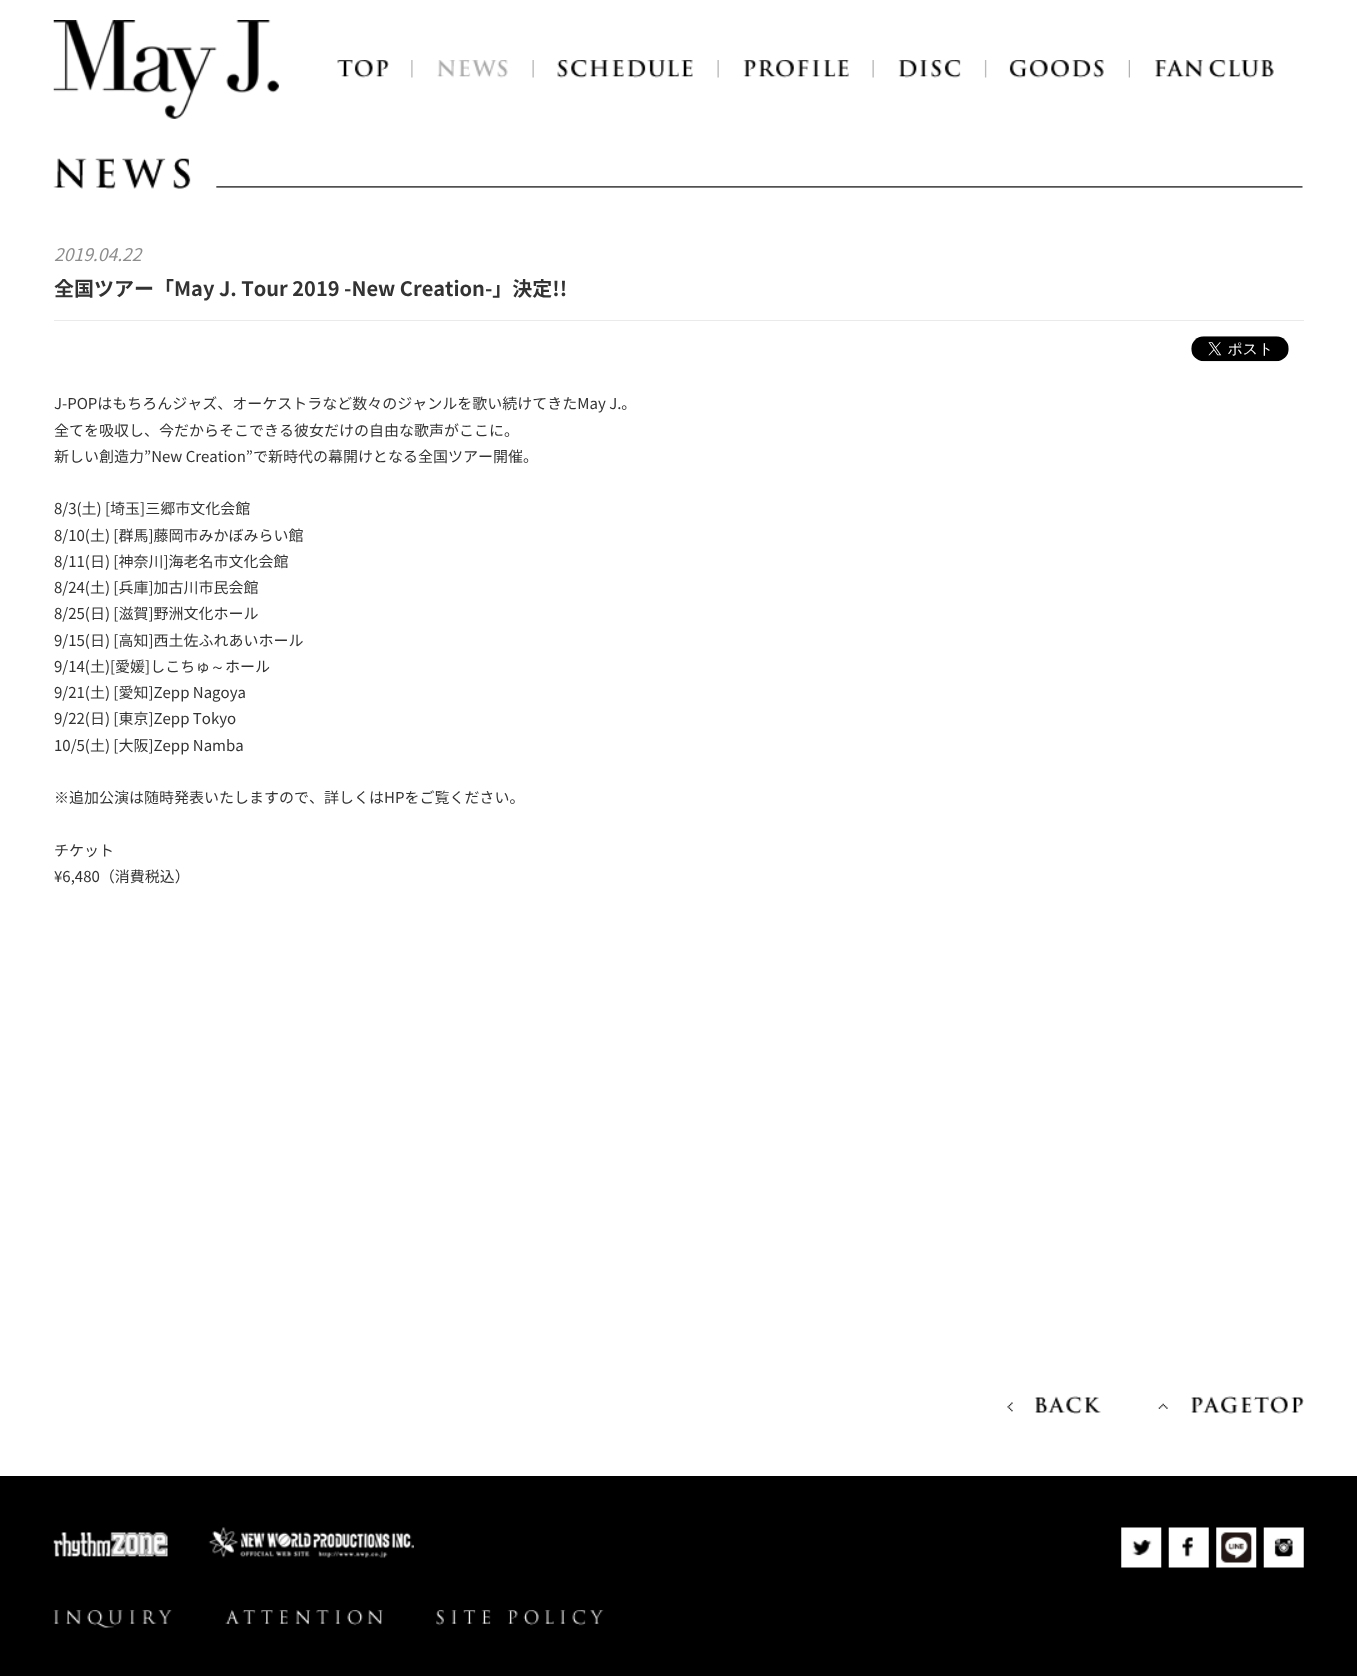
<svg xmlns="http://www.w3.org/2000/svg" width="1357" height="1676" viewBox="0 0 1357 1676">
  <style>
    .t1 { font: italic 17.5px Noto Sans CJK JP; fill: #8e8e8e; }
    .t2 { font: bold 20px Noto Sans CJK JP; fill: #333; }
    .t3 { font: 15px Noto Sans CJK JP; fill: #333; }
    .t4 { font: 500 15px WenQuanYi Zen Hei; fill: #333; }
  </style>
  <rect width="100%" height="100%" fill="#fff"/>
  <rect x="0" y="1476" width="1357" height="200" fill="#000"/>
  <image x="53" y="20" width="226" height="99" href="images/1.png"/>
  <image x="337" y="60" width="76" height="18" href="images/2.png"/>
  <image x="437" y="60" width="97" height="18" href="images/3.png"/>
  <image x="557" y="60" width="162" height="18" href="images/4.png"/>
  <image x="743" y="60" width="131" height="18" href="images/5.png"/>
  <image x="898" y="60" width="89" height="18" href="images/6.png"/>
  <image x="1009" y="60" width="121" height="18" href="images/7.png"/>
  <image x="1155" y="60" width="119" height="18" href="images/8.png"/>
  <image x="53" y="158" width="1250" height="31" href="images/9.png"/>
  <text x="54" y="261" class="t1">2019.04.22</text>
  <rect x="54" y="320" width="1250" height="1" fill="#eaeaea"/>
  <text x="54" y="296" class="t2">全国ツアー「May J. Tour 2019 -New Creation-」決定!!</text>
  <image x="1191" y="336" width="98" height="26" href="images/10.png"/>
  <text x="54" y="409" class="t3">J-POPはもちろんジャズ、オーケストラなど数々のジャンルを歌い続けてきたMay J.。</text>
  <text x="54" y="436" class="t3">全てを吸収し、今だからそこできる彼女だけの自由な歌声がここに。</text>
  <text x="54" y="462" class="t3">新しい創造力”New Creation”で新時代の幕開けとなる全国ツアー開催。</text>
  <text x="54" y="514" class="t3">8/3(土) [埼玉]三郷市文化会館</text>
  <text x="54" y="541" class="t3">8/10(土) [群馬]藤岡市みかぼみらい館</text>
  <text x="54" y="567" class="t3">8/11(日) [神奈川]海老名市文化会館</text>
  <text x="54" y="593" class="t3">8/24(土) [兵庫]加古川市民会館</text>
  <text x="54" y="619" class="t3">8/25(日) [滋賀]野洲文化ホール</text>
  <text x="54" y="646" class="t3">9/15(日) [高知]西土佐ふれあいホール</text>
  <text x="54" y="672" class="t3">9/14(土)[愛媛]しこちゅ</text>
  <text x="210" y="672" class="t4">～</text>
  <text x="225" y="672" class="t3">ホール</text>
  <text x="54" y="698" class="t3">9/21(土) [愛知]Zepp Nagoya</text>
  <text x="54" y="724" class="t3">9/22(日) [東京]Zepp Tokyo</text>
  <text x="54" y="751" class="t3">10/5(土) [大阪]Zepp Namba</text>
  <text x="54" y="803" class="t3">※追加公演は随時発表いたしますので、詳しくはHPをご覧ください。</text>
  <text x="54" y="856" class="t3">チケット</text>
  <text x="54" y="882" class="t3">¥6,480（消費税込）</text>
  <image x="1007" y="1396" width="94" height="18" href="images/11.png"/>
  <image x="1158" y="1396" width="146" height="18" href="images/12.png"/>
  <image x="53" y="1532" width="115" height="25" href="images/13.png"/>
  <image x="208" y="1527" width="206" height="31" href="images/14.png"/>
  <image x="1121" y="1527" width="41" height="41" href="images/15.png"/>
  <image x="1168" y="1527" width="41" height="41" href="images/16.png"/>
  <image x="1216" y="1527" width="41" height="41" href="images/17.png"/>
  <image x="1263" y="1527" width="41" height="41" href="images/18.png"/>
  <image x="53" y="1610" width="119" height="18" href="images/19.png"/>
  <image x="225" y="1610" width="158" height="16" href="images/20.png"/>
  <image x="436" y="1610" width="168" height="16" href="images/21.png"/>
</svg>
